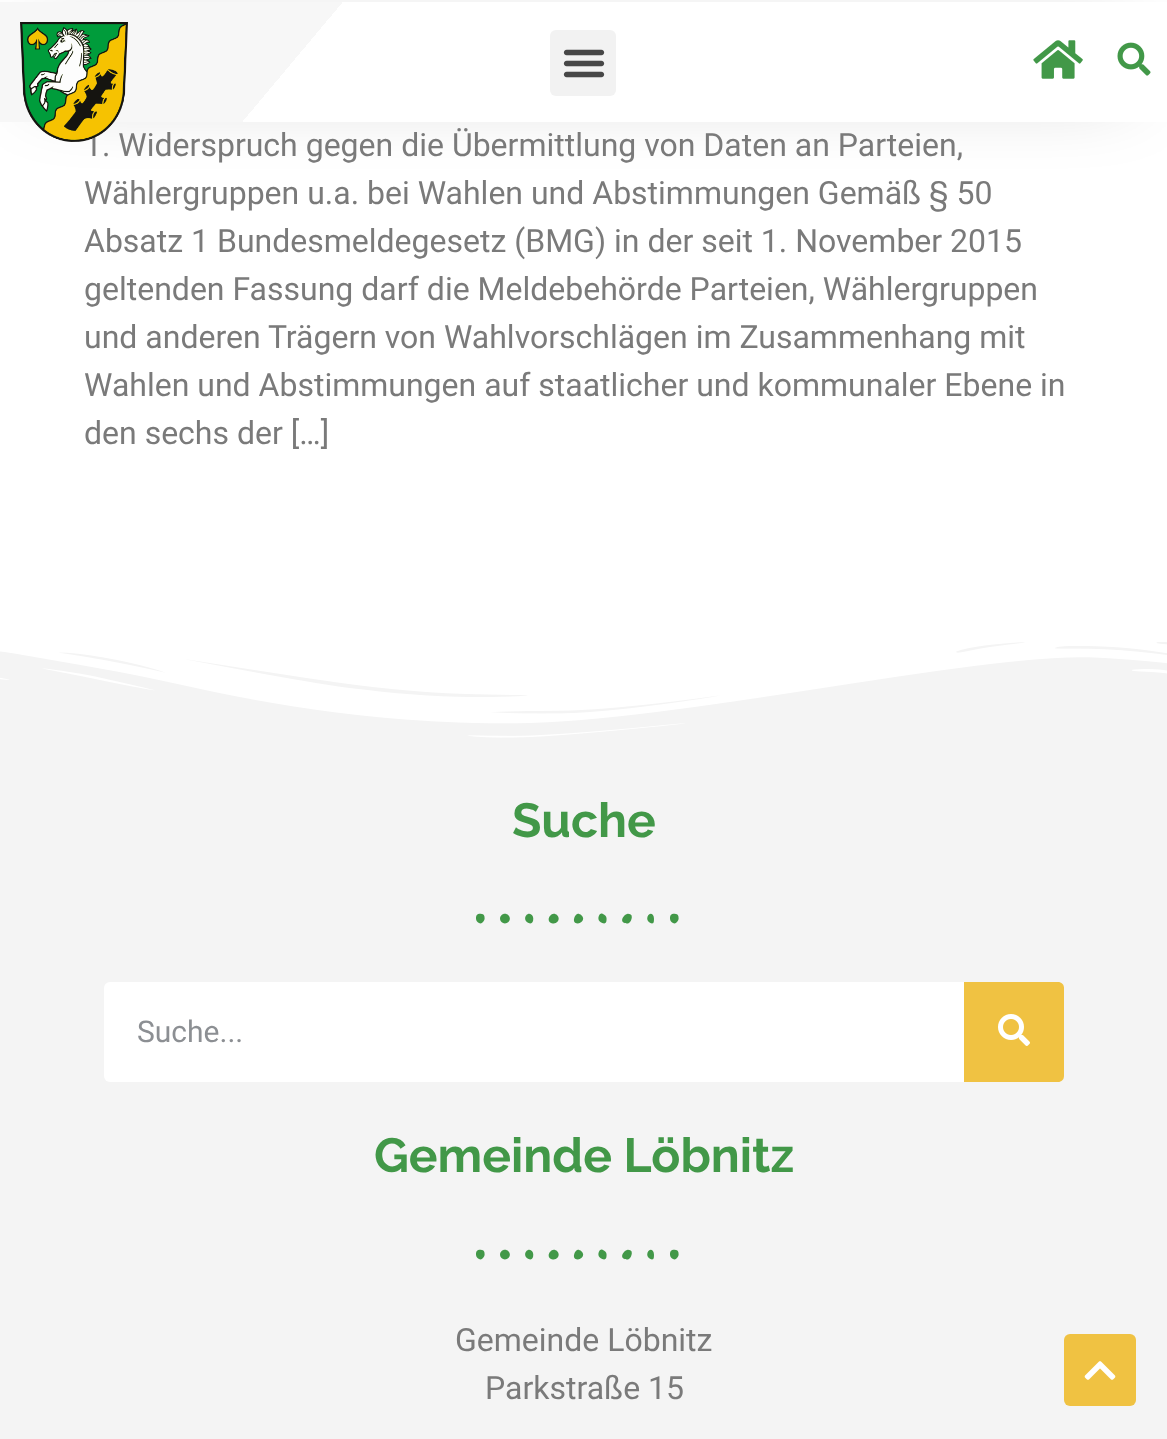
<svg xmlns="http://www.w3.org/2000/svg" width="1167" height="1439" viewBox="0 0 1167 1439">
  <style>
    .t1 { font: 32px Roboto; fill: #7a7a7a; }
    .t2 { font: bold 48px Raleway; fill: #429848; }
    .t3 { font: 30px Roboto; fill: #8c8f93; }
  </style>
  <defs>
    <linearGradient id="g1" gradientUnits="userSpaceOnUse" x1="212" y1="-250" x2="956" y2="374"><stop offset="0.27" stop-color="#f7f7f7"/><stop offset="0.27" stop-color="#fff"/></linearGradient>
  </defs>
  <rect width="100%" height="100%" fill="#fff"/>
  <rect x="40" y="42" width="1088" height="40" fill="#0000004d" filter="blur(40px)"/>
  <rect x="0" y="2" width="1167" height="120" fill="url(#g1)"/>
  <text x="84" y="156" class="t1">1. Widerspruch gegen die Übermittlung von Daten an Parteien,</text>
  <image x="20" y="22" width="108" height="120" href="images/1.png"/>
  <rect x="550" y="30" width="66" height="66" rx="6" fill="#f2f2f2"/>
  <image x="563" y="49" width="42" height="29" href="images/2.png"/>
  <image x="1033" y="40" width="50" height="39" href="images/3.png"/>
  <image x="1117" y="42" width="34" height="34" href="images/4.png"/>
  <text x="84" y="204" class="t1">Wählergruppen u.a. bei Wahlen und Abstimmungen Gemäß § 50</text>
  <text x="84" y="252" class="t1">Absatz 1 Bundesmeldegesetz (BMG) in der seit 1. November 2015</text>
  <text x="84" y="300" class="t1">geltenden Fassung darf die Meldebehörde Parteien, Wählergruppen</text>
  <text x="84" y="348" class="t1">und anderen Trägern von Wahlvorschlägen im Zusammenhang mit</text>
  <text x="84" y="396" class="t1">Wahlen und Abstimmungen auf staatlicher und kommunaler Ebene in</text>
  <text x="84" y="444" class="t1">den sechs der […]</text>
  <rect x="0" y="642" width="1167" height="797" fill="#f4f4f4"/>
  <image x="0" y="626" width="1167" height="112" href="images/5.png"/>
  <text x="512" y="837" class="t2">Suche</text>
  <image x="476" y="913" width="203" height="11" href="images/6.png"/>
  <rect x="104" y="982" width="960" height="100" rx="6" fill="#fff"/>
  <text x="137" y="1042" class="t3">Suche...</text>
  <path d="M964 982H1058C1061.5 982 1064 984.5 1064 988V1076C1064 1079.5 1061.5 1082 1058 1082H964Z" fill="#f0c242"/>
  <image x="998" y="1014" width="32" height="32" href="images/7.png"/>
  <text x="374" y="1172" class="t2">Gemeinde Löbnitz</text>
  <image x="476" y="1249" width="203" height="11" href="images/6.png"/>
  <text x="455" y="1351" class="t1">Gemeinde Löbnitz</text>
  <text x="485" y="1399" class="t1">Parkstraße 15</text>
  <rect x="1064" y="1334" width="72" height="72" rx="6" fill="#f0c242"/>
  <image x="1084" y="1361" width="32" height="19" href="images/8.png"/>
</svg>
